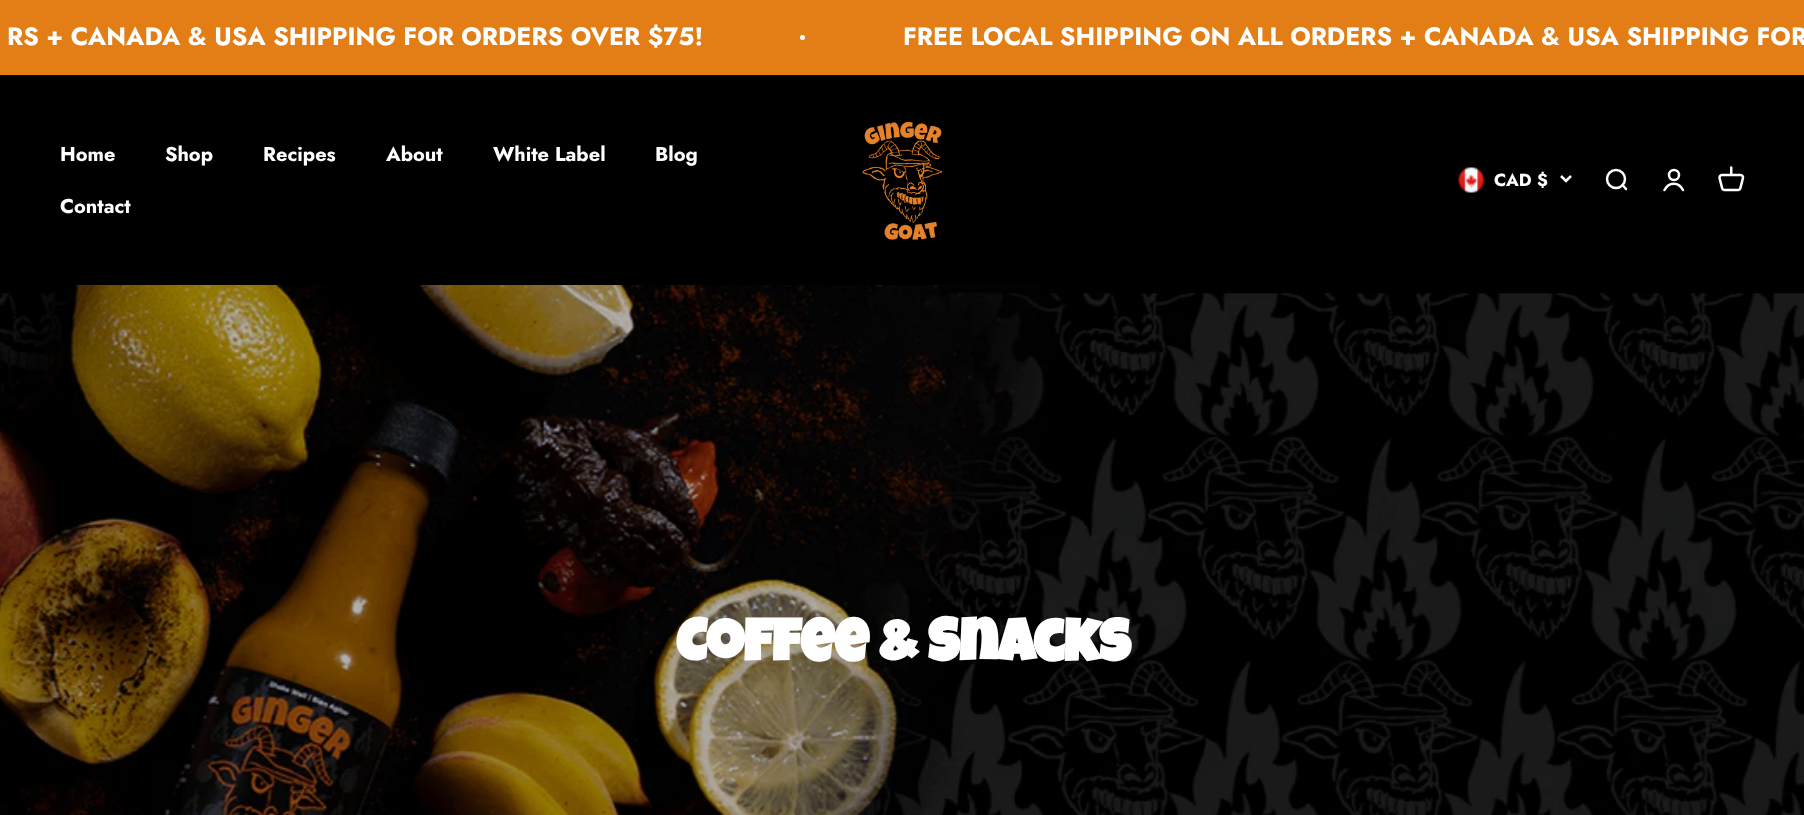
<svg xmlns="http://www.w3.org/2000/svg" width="1804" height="815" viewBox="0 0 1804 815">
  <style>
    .t1 { font: bold 25px Jost; fill: #fff; }
    .t2 { font: bold 20px Jost; fill: #fff; }
    .t3 { font: bold 17.5px Jost; fill: #fff; }
    .t4 { font: bold 60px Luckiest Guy; letter-spacing: -0.6px; fill: #fff; }
  </style>
  <rect width="100%" height="100%" fill="#000"/>
  <rect x="0" y="0" width="1804" height="75" fill="#e37e16"/>
  <text x="7" y="45" class="t1">RS + CANADA &amp; USA SHIPPING FOR ORDERS OVER $75!</text>
  <circle cx="802.5" cy="37.5" r="2.5" fill="#fff"/>
  <text x="903" y="45" class="t1">FREE LOCAL SHIPPING ON ALL ORDERS + CANADA &amp; USA SHIPPING FOR</text>
  <text x="60" y="161" class="t2">Home</text>
  <text x="165" y="161" class="t2">Shop</text>
  <text x="263" y="161" class="t2">Recipes</text>
  <text x="386" y="161" class="t2">About</text>
  <text x="493" y="161" class="t2">White Label</text>
  <text x="655" y="161" class="t2">Blog</text>
  <text x="60" y="213" class="t2">Contact</text>
  <image x="862" y="121" width="81" height="119" href="images/1.png"/>
  <image x="1458" y="167" width="27" height="26" href="images/2.png"/>
  <text x="1494" y="186" class="t3">CAD $</text>
  <path d="M1561 176L1566 181L1571 176" fill="none" stroke="#fff" stroke-width="2.5"/>
  <circle cx="1616" cy="179" r="9" fill="none" stroke="#fff" stroke-width="2.5"/>
  <path d="M1622.5 185L1626 189" fill="none" stroke="#fff" stroke-width="2.5" stroke-linecap="round" stroke-linejoin="round"/>
  <circle cx="1674" cy="175" r="5" fill="none" stroke="#fff" stroke-width="2.5"/>
  <path d="M1664.5 190C1668.5 181.5 1679 181.5 1683 190" fill="none" stroke="#fff" stroke-width="2.5" stroke-linecap="round"/>
  <image x="1718" y="166" width="27" height="26" href="images/3.png"/>
  <image x="0" y="285" width="1804" height="530" href="images/4.png"/>
  <text x="676" y="661" class="t4">Coffee &amp; Snacks</text>
</svg>
